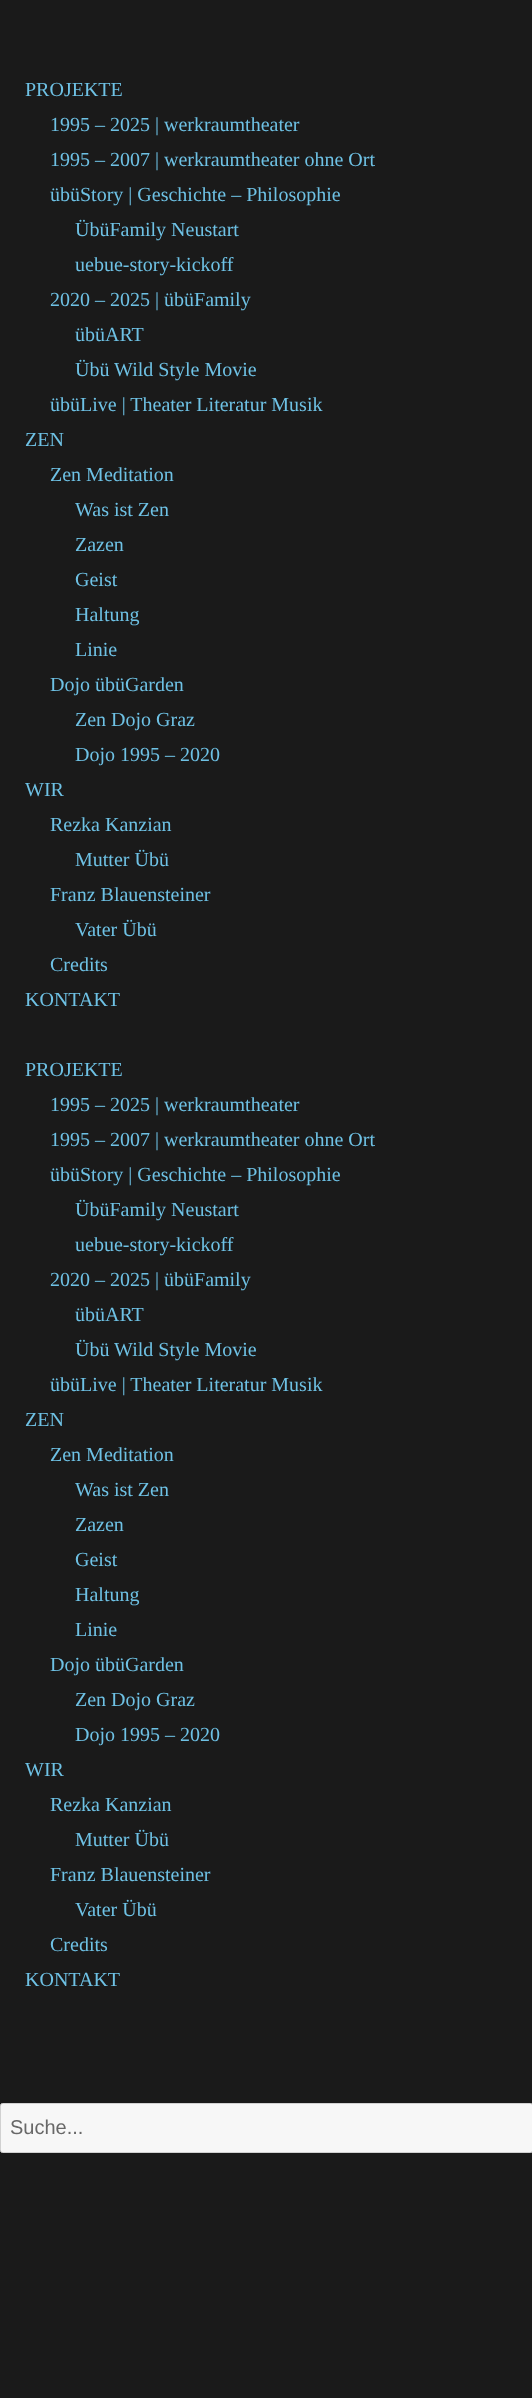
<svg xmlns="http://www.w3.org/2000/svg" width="532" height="2398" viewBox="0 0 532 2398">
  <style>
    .t1 { font: 20px Liberation Serif; fill: #6ec1e4; }
    .t2 { font: 20px Liberation Sans; fill: #686868; }
  </style>
  <rect width="100%" height="100%" fill="#1a1a1a"/>
  <text x="25" y="96" class="t1">PROJEKTE</text>
  <text x="50" y="131" class="t1">1995 – 2025 | werkraumtheater</text>
  <text x="50" y="166" class="t1">1995 – 2007 | werkraumtheater ohne Ort</text>
  <text x="50" y="201" class="t1">übüStory | Geschichte – Philosophie</text>
  <text x="75" y="236" class="t1">ÜbüFamily Neustart</text>
  <text x="75" y="271" class="t1">uebue-story-kickoff</text>
  <text x="50" y="306" class="t1">2020 – 2025 | übüFamily</text>
  <text x="75" y="341" class="t1">übüART</text>
  <text x="75" y="376" class="t1">Übü Wild Style Movie</text>
  <text x="50" y="411" class="t1">übüLive | Theater Literatur Musik</text>
  <text x="25" y="446" class="t1">ZEN</text>
  <text x="50" y="481" class="t1">Zen Meditation</text>
  <text x="75" y="516" class="t1">Was ist Zen</text>
  <text x="75" y="551" class="t1">Zazen</text>
  <text x="75" y="586" class="t1">Geist</text>
  <text x="75" y="621" class="t1">Haltung</text>
  <text x="75" y="656" class="t1">Linie</text>
  <text x="50" y="691" class="t1">Dojo übüGarden</text>
  <text x="75" y="726" class="t1">Zen Dojo Graz</text>
  <text x="75" y="761" class="t1">Dojo 1995 – 2020</text>
  <text x="25" y="796" class="t1">WIR</text>
  <text x="50" y="831" class="t1">Rezka Kanzian</text>
  <text x="75" y="866" class="t1">Mutter Übü</text>
  <text x="50" y="901" class="t1">Franz Blauensteiner</text>
  <text x="75" y="936" class="t1">Vater Übü</text>
  <text x="50" y="971" class="t1">Credits</text>
  <text x="25" y="1006" class="t1">KONTAKT</text>
  <text x="25" y="1076" class="t1">PROJEKTE</text>
  <text x="50" y="1111" class="t1">1995 – 2025 | werkraumtheater</text>
  <text x="50" y="1146" class="t1">1995 – 2007 | werkraumtheater ohne Ort</text>
  <text x="50" y="1181" class="t1">übüStory | Geschichte – Philosophie</text>
  <text x="75" y="1216" class="t1">ÜbüFamily Neustart</text>
  <text x="75" y="1251" class="t1">uebue-story-kickoff</text>
  <text x="50" y="1286" class="t1">2020 – 2025 | übüFamily</text>
  <text x="75" y="1321" class="t1">übüART</text>
  <text x="75" y="1356" class="t1">Übü Wild Style Movie</text>
  <text x="50" y="1391" class="t1">übüLive | Theater Literatur Musik</text>
  <text x="25" y="1426" class="t1">ZEN</text>
  <text x="50" y="1461" class="t1">Zen Meditation</text>
  <text x="75" y="1496" class="t1">Was ist Zen</text>
  <text x="75" y="1531" class="t1">Zazen</text>
  <text x="75" y="1566" class="t1">Geist</text>
  <text x="75" y="1601" class="t1">Haltung</text>
  <text x="75" y="1636" class="t1">Linie</text>
  <text x="50" y="1671" class="t1">Dojo übüGarden</text>
  <text x="75" y="1706" class="t1">Zen Dojo Graz</text>
  <text x="75" y="1741" class="t1">Dojo 1995 – 2020</text>
  <text x="25" y="1776" class="t1">WIR</text>
  <text x="50" y="1811" class="t1">Rezka Kanzian</text>
  <text x="75" y="1846" class="t1">Mutter Übü</text>
  <text x="50" y="1881" class="t1">Franz Blauensteiner</text>
  <text x="75" y="1916" class="t1">Vater Übü</text>
  <text x="50" y="1951" class="t1">Credits</text>
  <text x="25" y="1986" class="t1">KONTAKT</text>
  <rect x="0.5" y="2103.5" width="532" height="49" rx="2" fill="#f7f7f7" stroke="#d1d1d1"/>
  <text x="10" y="2134" class="t2">Suche...</text>
</svg>
